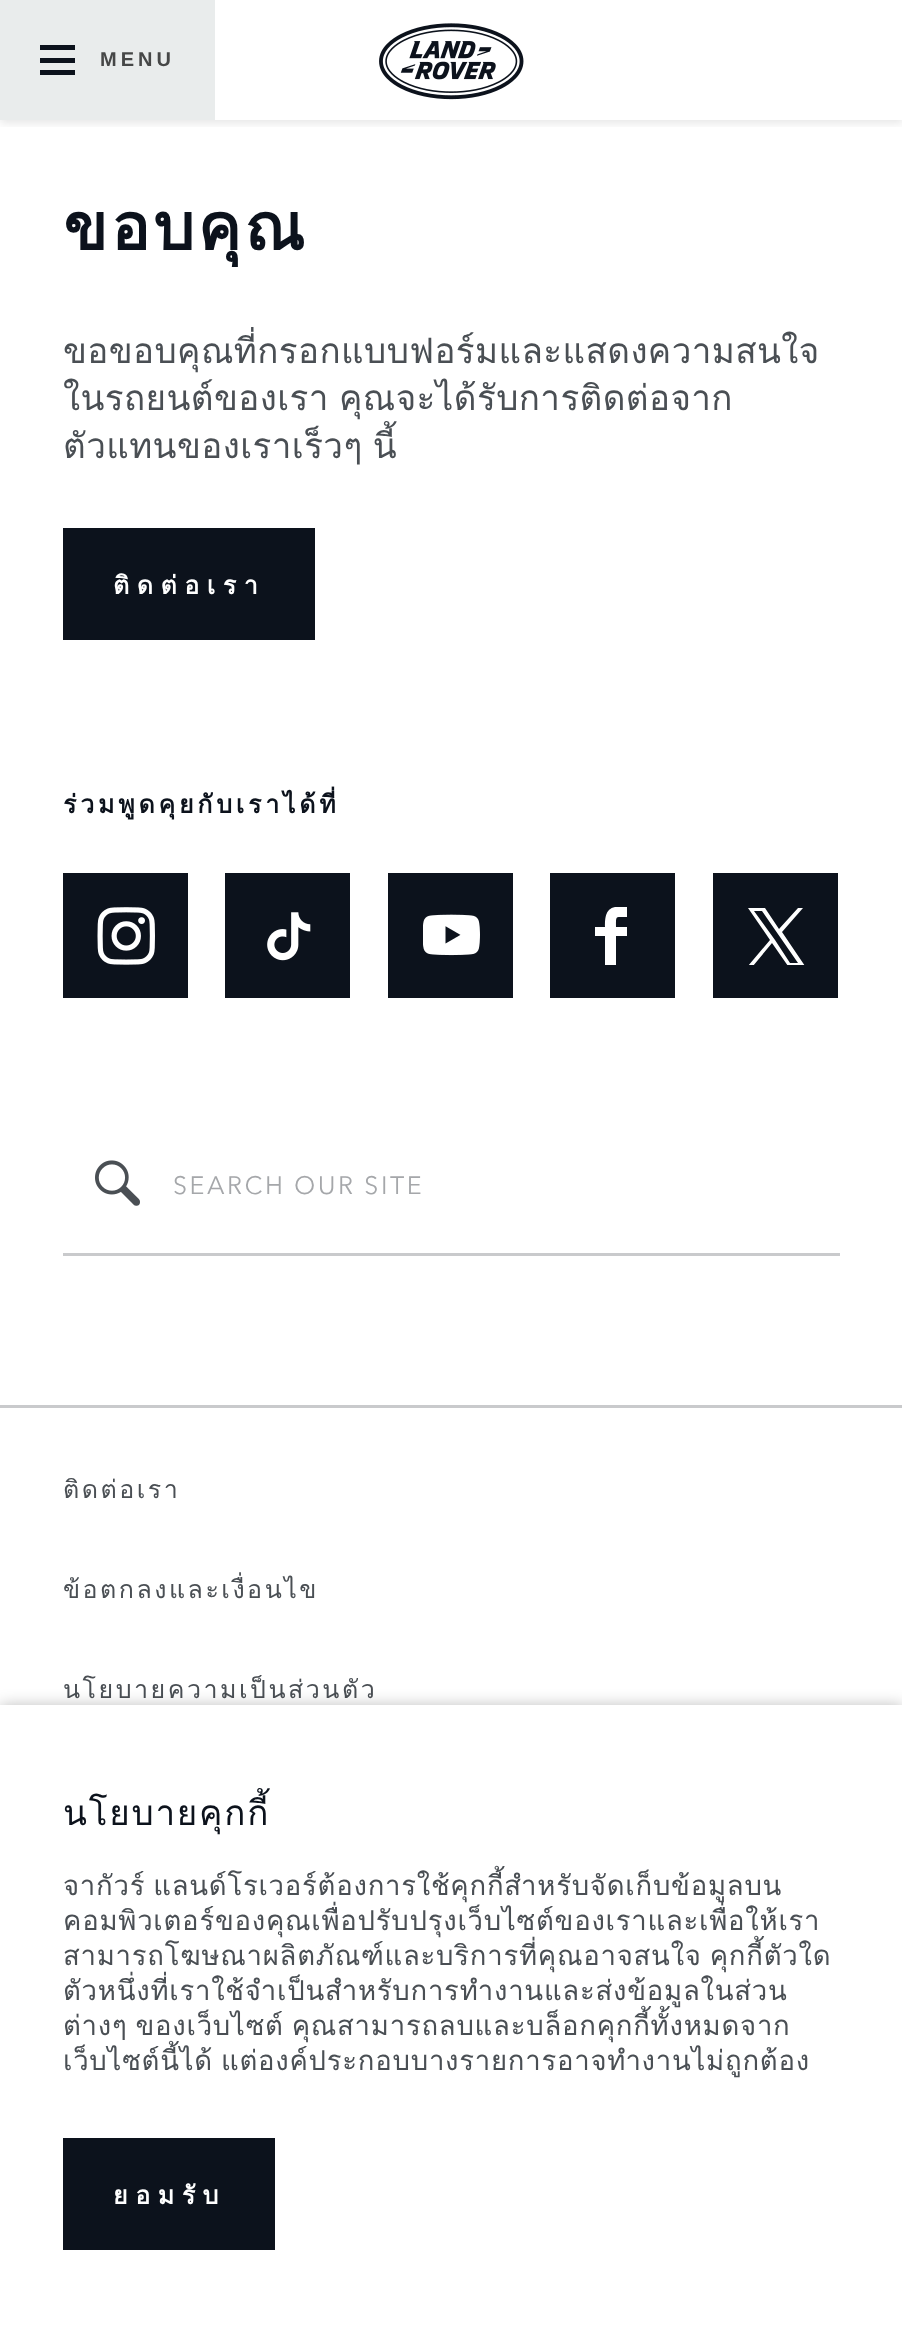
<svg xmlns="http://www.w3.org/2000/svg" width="902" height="2337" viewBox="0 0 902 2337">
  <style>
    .t1 { font: bold 20px Liberation Sans; letter-spacing: 4px; fill: #464747; }
    .t2 { font: bold 65px Loma; letter-spacing: 3.25px; fill: #0c121c; }
    .t3 { font: 35px Loma; letter-spacing: 0.4px; fill: #4a4f54; }
    .t4 { font: bold 25px Loma; letter-spacing: 7.5px; fill: #fff; }
    .t5 { font: bold 25px Loma; letter-spacing: 3.75px; fill: #0c121c; }
    .t6 { font: 25px Avenir Next; letter-spacing: 2.5px; fill: #a5a7aa; }
    .t7 { font: 25px Loma; letter-spacing: 2.5px; fill: #4a4f54; }
    .t8 { font: 35px Loma; letter-spacing: 1.75px; fill: #0c121c; }
    .t9 { font: 27.5px Loma; letter-spacing: 0.75px; fill: #4a4f54; }
  </style>
  <defs>
    <clipPath id="clip1"><rect x="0" y="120" width="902" height="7"/></clipPath>
    <clipPath id="clip2"><rect x="748" y="908" width="57" height="57"/></clipPath>
  </defs>
  <rect width="100%" height="100%" fill="#fff"/>
  <g clip-path="url(#clip1)">
    <rect x="0" y="3" width="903" height="120" fill="#0000001a" filter="blur(5px)"/>
  </g>
  <rect x="0" y="0" width="215" height="120" fill="#e9ecec"/>
  <rect x="40" y="45" width="35" height="5" fill="#0c121c"/>
  <rect x="40" y="58" width="35" height="5" fill="#0c121c"/>
  <rect x="40" y="70" width="35" height="5" fill="#0c121c"/>
  <text x="100" y="66" class="t1">MENU</text>
  <image x="379" y="23" width="145" height="77" href="images/1.png"/>
  <text x="63" y="250" class="t2">ขอบคุณ</text>
  <text x="63" y="363" class="t3">ขอขอบคุณที่กรอกแบบฟอร์มและแสดงความสนใจ</text>
  <text x="63" y="410" word-spacing="-2" class="t3">ในรถยนต์ของเรา คุณจะได้รับการติดต่อจาก</text>
  <text x="63" y="458" word-spacing="-2" class="t3">ตัวแทนของเราเร็วๆ นี้</text>
  <rect x="63" y="528" width="252" height="112" fill="#0c121c"/>
  <text x="113" y="594" class="t4">ติดต่อเรา</text>
  <text x="63" y="813" class="t5">ร่วมพูดคุยกับเราได้ที่</text>
  <rect x="63" y="873" width="125" height="125" fill="#0c121c"/>
  <image x="97" y="907" width="58" height="58" href="images/2.png"/>
  <rect x="225" y="873" width="125" height="125" fill="#0c121c"/>
  <image x="267" y="912" width="44" height="49" href="images/3.png"/>
  <rect x="388" y="873" width="125" height="125" fill="#0c121c"/>
  <image x="423" y="914" width="57" height="42" href="images/4.png"/>
  <rect x="550" y="873" width="125" height="125" fill="#0c121c"/>
  <path d="M627 917C615 917 616 915 616 927H627V936H616V965H605V936H595V927H605C605 919 605 909 615 907H627Z" fill="#fff"/>
  <rect x="713" y="873" width="125" height="125" fill="#0c121c"/>
  <g clip-path="url(#clip2)">
    <path d="M782 932L803 908H798L779 929L765 908H748L770 940L748 966H753L772 943L788 966H805ZM775 940L754 911H762L798 963H790Z" fill="#fff"/>
  </g>
  <image x="95" y="1160" width="45" height="46" href="images/5.png"/>
  <rect x="63" y="1253" width="777" height="3" fill="#c9cacc"/>
  <text x="173" y="1194" class="t6">SEARCH OUR SITE</text>
  <rect x="0" y="1405" width="902" height="3" fill="#c9cacc"/>
  <text x="63" y="1498" class="t7">ติดต่อเรา</text>
  <text x="63" y="1598" class="t7">ข้อตกลงและเงื่อนไข</text>
  <text x="63" y="1698" class="t7">นโยบายความเป็นส่วนตัว</text>
  <rect x="0" y="1705" width="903" height="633" fill="#01010140" filter="blur(7.5px)"/>
  <rect x="0" y="1705" width="902" height="632" fill="#fff"/>
  <text x="63" y="1825" class="t8">นโยบายคุกกี้</text>
  <text x="63" y="1895" word-spacing="-2" class="t9">จากัวร์ แลนด์โรเวอร์ต้องการใช้คุกกี้สำหรับจัดเก็บข้อมูลบน</text>
  <text x="63" y="1930" class="t9">คอมพิวเตอร์ของคุณเพื่อปรับปรุงเว็บไซต์ของเราและเพื่อให้เรา</text>
  <text x="63" y="1965" word-spacing="-2" class="t9">สามารถโฆษณาผลิตภัณฑ์และบริการที่คุณอาจสนใจ คุกกี้ตัวใด</text>
  <text x="63" y="2000" class="t9">ตัวหนึ่งที่เราใช้จำเป็นสำหรับการทำงานและส่งข้อมูลในส่วน</text>
  <text x="63" y="2035" word-spacing="-2" class="t9">ต่างๆ ของเว็บไซต์ คุณสามารถลบและบล็อกคุกกี้ทั้งหมดจาก</text>
  <text x="63" y="2070" word-spacing="-2" class="t9">เว็บไซต์นี้ได้ แต่องค์ประกอบบางรายการอาจทำงานไม่ถูกต้อง</text>
  <rect x="63" y="2138" width="212" height="112" fill="#0c121c"/>
  <text x="113" y="2204" class="t4">ยอมรับ</text>
</svg>
